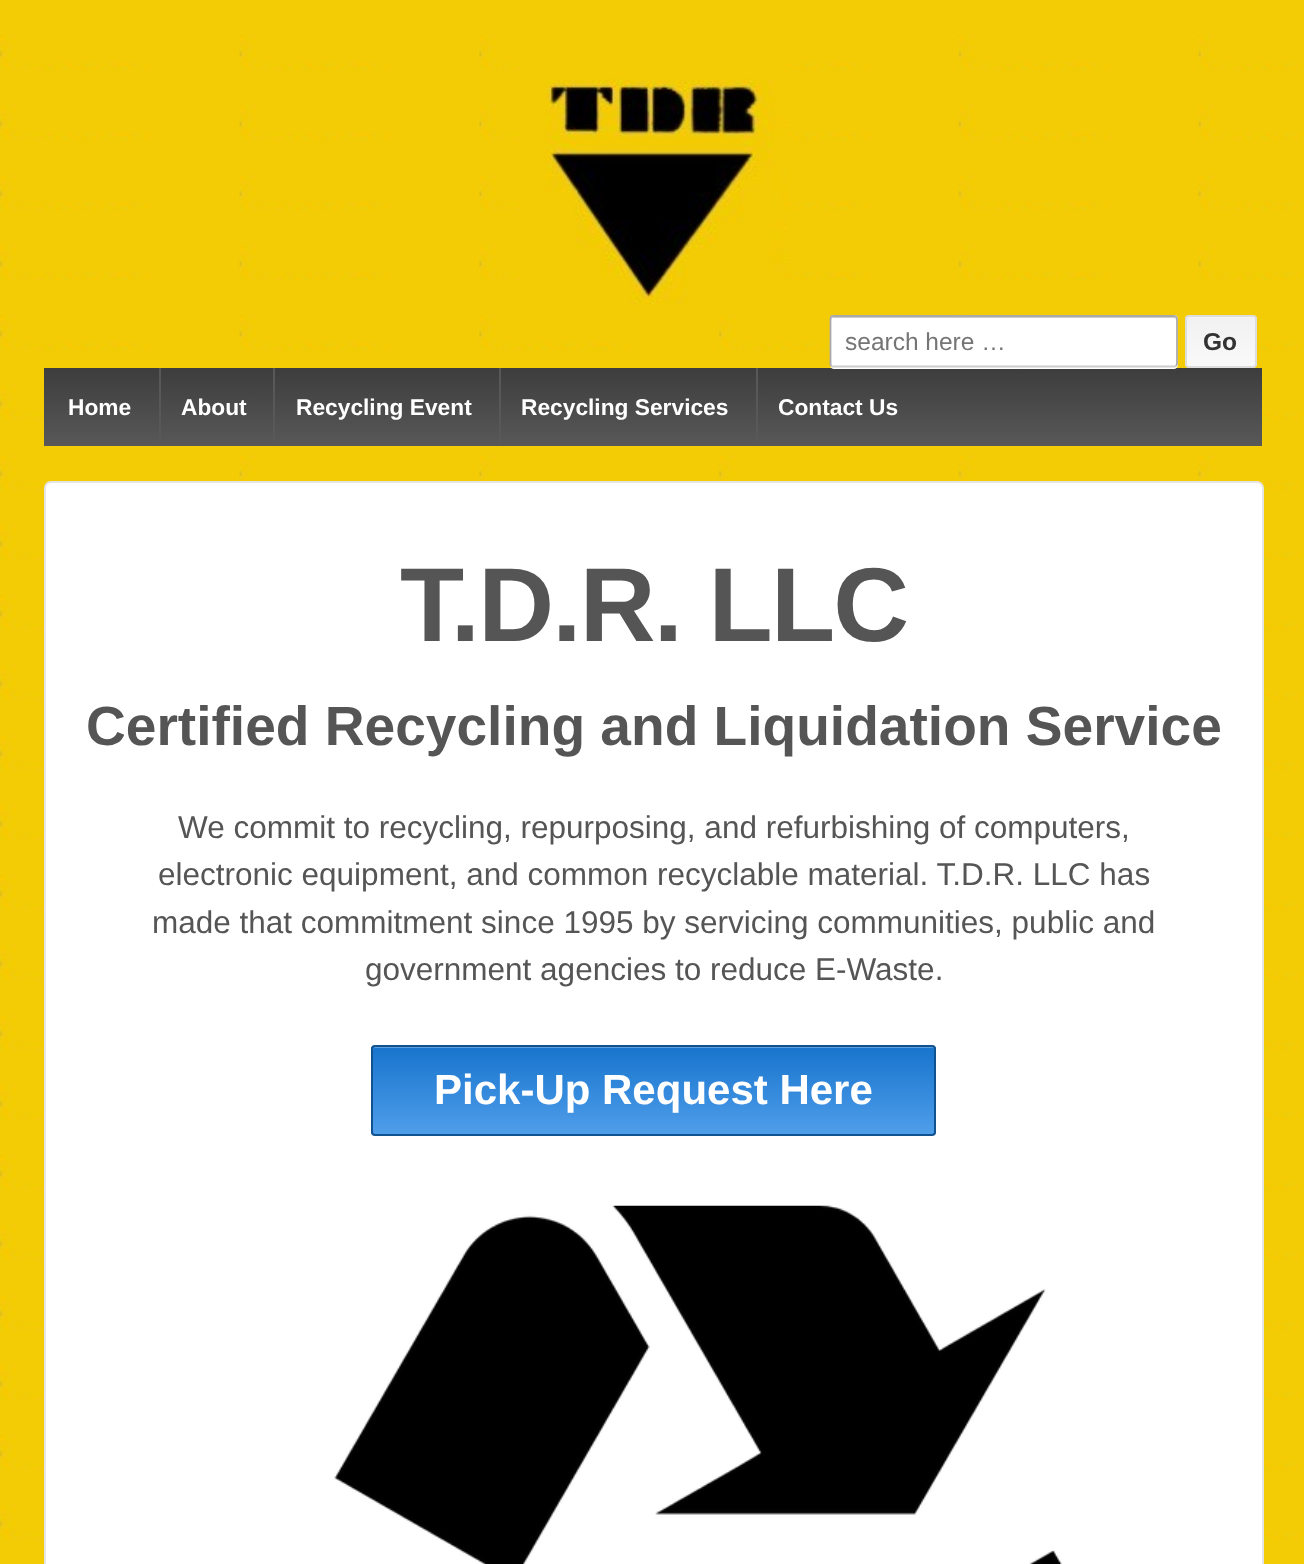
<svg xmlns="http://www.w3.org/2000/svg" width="1304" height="1564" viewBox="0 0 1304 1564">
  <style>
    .t1 { font: 24.5px Liberation Sans; fill: #757575; }
    .t2 { font: bold 24.5px Liberation Sans; fill: #333; }
    .t3 { font: bold 22.75px Liberation Sans; fill: #fff; }
    .t4 { font: bold 105px Liberation Sans; letter-spacing: -1.75px; fill: #555; }
    .t5 { font: bold 55.1px Liberation Sans; fill: #555; }
    .t6 { font: 31.5px Liberation Sans; fill: #555; }
    .t7 { font: bold 42px Liberation Sans; fill: #fff; }
  </style>
  <defs>
    <linearGradient id="g1" gradientUnits="userSpaceOnUse" x1="653" y1="446" x2="653" y2="368"><stop offset="0" stop-color="#585858"/><stop offset="1" stop-color="#3d3d3d"/></linearGradient>
    <clipPath id="clip1"><rect x="1185" y="315" width="72" height="53" rx="4"/></clipPath>
    <linearGradient id="g2" gradientUnits="userSpaceOnUse" x1="1221" y1="366" x2="1221" y2="317"><stop offset="0" stop-color="#f9f9f9"/><stop offset="1" stop-color="#f1f1f1"/></linearGradient>
    <clipPath id="clip2"><rect x="371" y="1045" width="565" height="91" rx="4"/></clipPath>
    <linearGradient id="g3" gradientUnits="userSpaceOnUse" x1="654" y1="1134" x2="654" y2="1047"><stop offset="0" stop-color="#4f9eea"/><stop offset="1" stop-color="#1874cd"/></linearGradient>
  </defs>
  <rect width="100%" height="100%" fill="#fff"/>
  <image x="0" y="0" width="1304" height="1564" href="images/1.png"/>
  <image x="520" y="35" width="268" height="270" href="images/2.png"/>
  <rect x="44" y="368" width="1218" height="78" fill="url(#g1)"/>
  <path d="M830 366C831 368 832 369 834 369H1174C1176 369 1178 367 1178 365V320V364C1178 366 1176 368 1174 368H833C832 368 831 367 830 366Z" fill="#fff"/>
  <rect x="830" y="315" width="348" height="53" rx="4" fill="#fff"/>
  <path d="M833 318H1174C1175 318 1176 319 1176 320C1176 319 1176 317 1174 317H833L831 318V320C831 319 832 318 833 318Z" fill="#ccc"/>
  <path d="M1176 366L1174 366.5H833L831 366" fill="none" stroke="#ccc" stroke-width="1.8"/>
  <path d="M831 366L830.5 364V318.5L831 316.5L833 316H1174L1176 316.5L1177 318.5V364L1176 366" fill="none" stroke="#aaa" stroke-width="1.8"/>
  <text x="845" y="350" class="t1">search here …</text>
  <g clip-path="url(#clip1)">
    <rect x="1185" y="317" width="72" height="49" fill="url(#g2)"/>
  </g>
  <path d="M1188 318H1249C1253 318 1255 318 1255 323C1255 314 1253 317 1242 317H1221C1217 317 1189 316 1188 318L1187 320ZM1255 363V364Z" fill="#f5f5f5" fill-rule="evenodd"/>
  <rect x="1186" y="316" width="70" height="51" rx="3" fill="none" stroke="#ddd" stroke-width="2"/>
  <text x="1203" y="350" class="t2">Go</text>
  <text x="68" y="415" class="t3">Home</text>
  <rect x="159" y="368" width="2" height="78" fill="#585858"/>
  <text x="181" y="415" class="t3">About</text>
  <rect x="273" y="368" width="2" height="78" fill="#585858"/>
  <text x="296" y="415" class="t3">Recycling Event</text>
  <rect x="499" y="368" width="2" height="78" fill="#585858"/>
  <text x="521" y="415" class="t3">Recycling Services</text>
  <rect x="756" y="368" width="2" height="78" fill="#585858"/>
  <text x="778" y="415" class="t3">Contact Us</text>
  <rect x="45" y="482" width="1218" height="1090" rx="6" fill="#fff" stroke="#e5e5e5" stroke-width="2"/>
  <text x="400" y="641" class="t4">T.D.R. LLC</text>
  <text x="86" y="745" class="t5">Certified Recycling and Liquidation Service</text>
  <text x="178" y="838" class="t6">We commit to recycling, repurposing, and refurbishing of computers,</text>
  <text x="158" y="885" class="t6">electronic equipment, and common recyclable material. T.D.R. LLC has</text>
  <text x="152" y="933" class="t6">made that commitment since 1995 by servicing communities, public and</text>
  <text x="365" y="980" class="t6">government agencies to reduce E-Waste.</text>
  <g clip-path="url(#clip2)">
    <rect x="371" y="1047" width="565" height="87" fill="url(#g3)"/>
  </g>
  <path d="M374 1048H933C934 1048 934 1049 934 1050V1134C935 1133 935 1133 935 1132V1049C935 1048 934 1047 933 1047H375C374 1047 373 1048 373 1049V1050Z" fill="#ffffff4d"/>
  <rect x="372" y="1046" width="563" height="89" rx="3" fill="none" stroke="#115290" stroke-width="2"/>
  <text x="434" y="1104" class="t7">Pick-Up Request Here</text>
  <image x="334" y="1205" width="728" height="359" href="images/3.png"/>
</svg>
